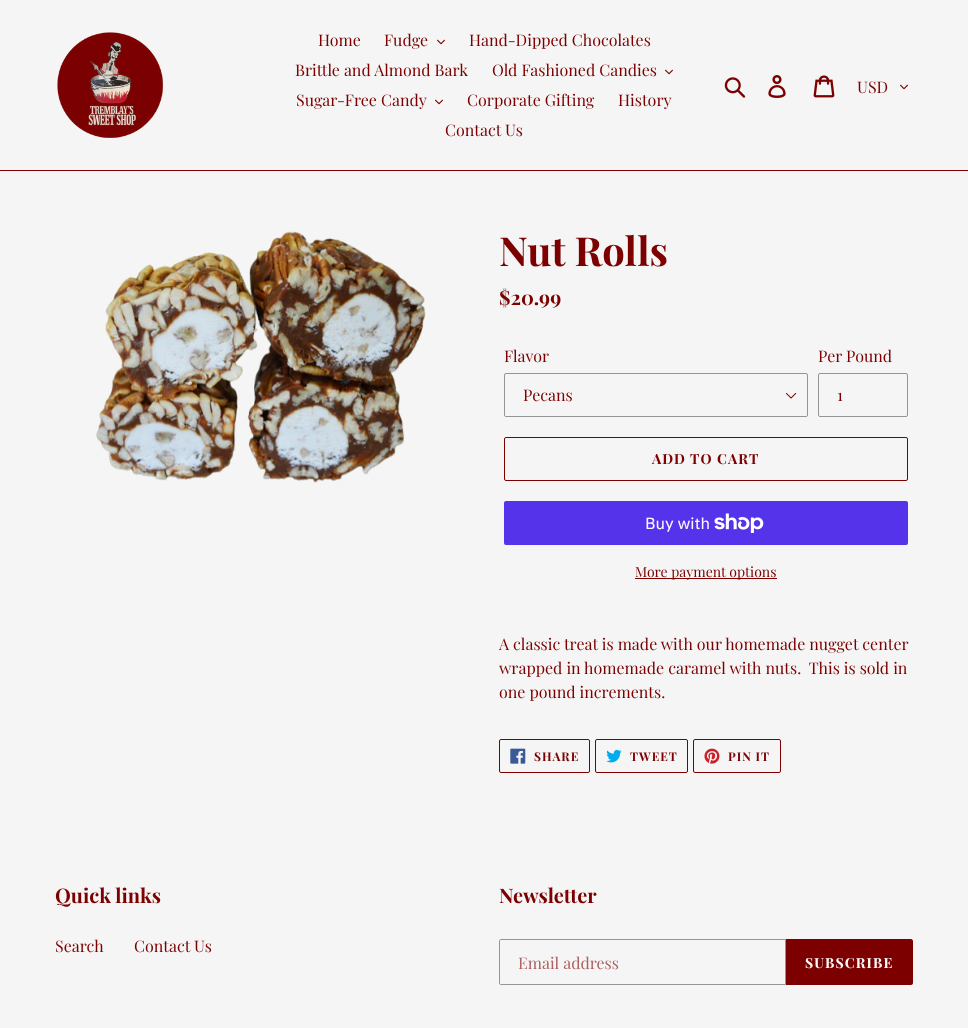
<svg xmlns="http://www.w3.org/2000/svg" width="968" height="1028" viewBox="0 0 968 1028">
  <style>
    .t1 { font: 16px Playfair Display; fill: #7c0000; }
    .t2 { font: bold 40px Playfair Display; fill: #7c0000; }
    .t3 { font: bold 20px Playfair Display; fill: #7c0000; }
    .t4 { font: bold 14px Playfair Display; letter-spacing: 1.1px; fill: #7c0000; }
    .t5 { font: 16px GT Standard; fill: #fafafa; }
    .t6 { font: 14px Playfair Display; fill: #7c0000; }
    .t7 { font: bold 12px Playfair Display; letter-spacing: 1px; fill: #7c0000; }
    .t8 { font: 16px Playfair Display; fill: #ac6262; }
    .t9 { font: bold 14px Playfair Display; letter-spacing: 1.1px; fill: #fafafa; }
  </style>
  <rect width="100%" height="100%" fill="#f5f5f5"/>
  <rect x="0" y="170" width="968" height="1" fill="#7c0000"/>
  <image x="57" y="32" width="106" height="106" href="images/1.png"/>
  <text x="318" y="46" class="t1">Home</text>
  <text x="384" y="46" class="t1">Fudge</text>
  <image x="437" y="39" width="8" height="6" href="images/2.png"/>
  <text x="469" y="46" class="t1">Hand-Dipped Chocolates</text>
  <text x="295" y="76" class="t1">Brittle and Almond Bark</text>
  <text x="492" y="76" class="t1">Old Fashioned Candies</text>
  <image x="665" y="69" width="8" height="6" href="images/2.png"/>
  <text x="296" y="106" class="t1">Sugar-Free Candy</text>
  <image x="435" y="99" width="8" height="6" href="images/2.png"/>
  <text x="467" y="106" class="t1">Corporate Gifting</text>
  <text x="618" y="106" class="t1">History</text>
  <text x="445" y="136" class="t1">Contact Us</text>
  <image x="724" y="77" width="22" height="21" href="images/3.png"/>
  <image x="768" y="75" width="18" height="23" href="images/4.png"/>
  <image x="813" y="75" width="22" height="23" href="images/5.png"/>
  <text x="857" y="93" class="t1">USD</text>
  <image x="900" y="84" width="8" height="6" href="images/2.png"/>
  <image x="96" y="231" width="330" height="252" href="images/6.png"/>
  <text x="499" y="266" class="t2">Nut Rolls</text>
  <text x="499" y="305" class="t3">$20.99</text>
  <text x="504" y="362" class="t1">Flavor</text>
  <image x="785" y="392" width="12" height="7" href="images/7.png"/>
  <rect x="504.5" y="373.5" width="303" height="43" rx="1.5" fill="none" stroke="#949494"/>
  <text x="523" y="401" class="t1">Pecans</text>
  <text x="818" y="362" class="t1">Per Pound</text>
  <rect x="818.5" y="373.5" width="89" height="43" rx="1.5" fill="none" stroke="#949494"/>
  <text x="837" y="401" class="t1">1</text>
  <rect x="504.5" y="437.5" width="403" height="43" rx="1.5" fill="none" stroke="#7c0000"/>
  <text x="652" y="464" class="t4">ADD TO CART</text>
  <rect x="504" y="501" width="404" height="44" rx="2" fill="#5433eb"/>
  <text x="645" y="529" class="t5">Buy with</text>
  <image x="714" y="513" width="50" height="20" href="images/8.png"/>
  <rect x="635" y="578" width="142" height="1" fill="#7c0000"/>
  <text x="635" y="577" class="t6">More payment options</text>
  <text x="499" y="650" class="t1">A classic treat is made with our homemade nugget center</text>
  <text x="499" y="674" class="t1" xml:space="preserve">wrapped in homemade caramel with nuts.  This is sold in</text>
  <text x="499" y="698" class="t1">one pound increments.</text>
  <rect x="499.5" y="739.5" width="90" height="33" rx="1.5" fill="none" stroke="#7c0000"/>
  <image x="510" y="748" width="16" height="16" href="images/9.png"/>
  <text x="534" y="761" class="t7">SHARE</text>
  <rect x="595.5" y="739.5" width="92" height="33" rx="1.5" fill="none" stroke="#7c0000"/>
  <image x="606" y="749" width="16" height="14" href="images/10.png"/>
  <text x="630" y="761" class="t7">TWEET</text>
  <rect x="693.5" y="739.5" width="87" height="33" rx="1.5" fill="none" stroke="#7c0000"/>
  <image x="704" y="748" width="16" height="16" href="images/11.png"/>
  <text x="728" y="761" class="t7">PIN IT</text>
  <text x="55" y="903" class="t3">Quick links</text>
  <text x="55" y="952" class="t1">Search</text>
  <text x="134" y="952" class="t1">Contact Us</text>
  <text x="499" y="903" class="t3">Newsletter</text>
  <path d="M501 939.5H785.5V984.5H501C500 984.5 499.5 984 499.5 983V941C499.5 940 500 939.5 501 939.5Z" fill="none" stroke="#949494"/>
  <text x="518" y="969" class="t8">Email address</text>
  <path d="M786 939H911C912 939 913 940 913 941V983C913 984 912 985 911 985H786Z" fill="#7c0000"/>
  <text x="805" y="968" class="t9">SUBSCRIBE</text>
</svg>
